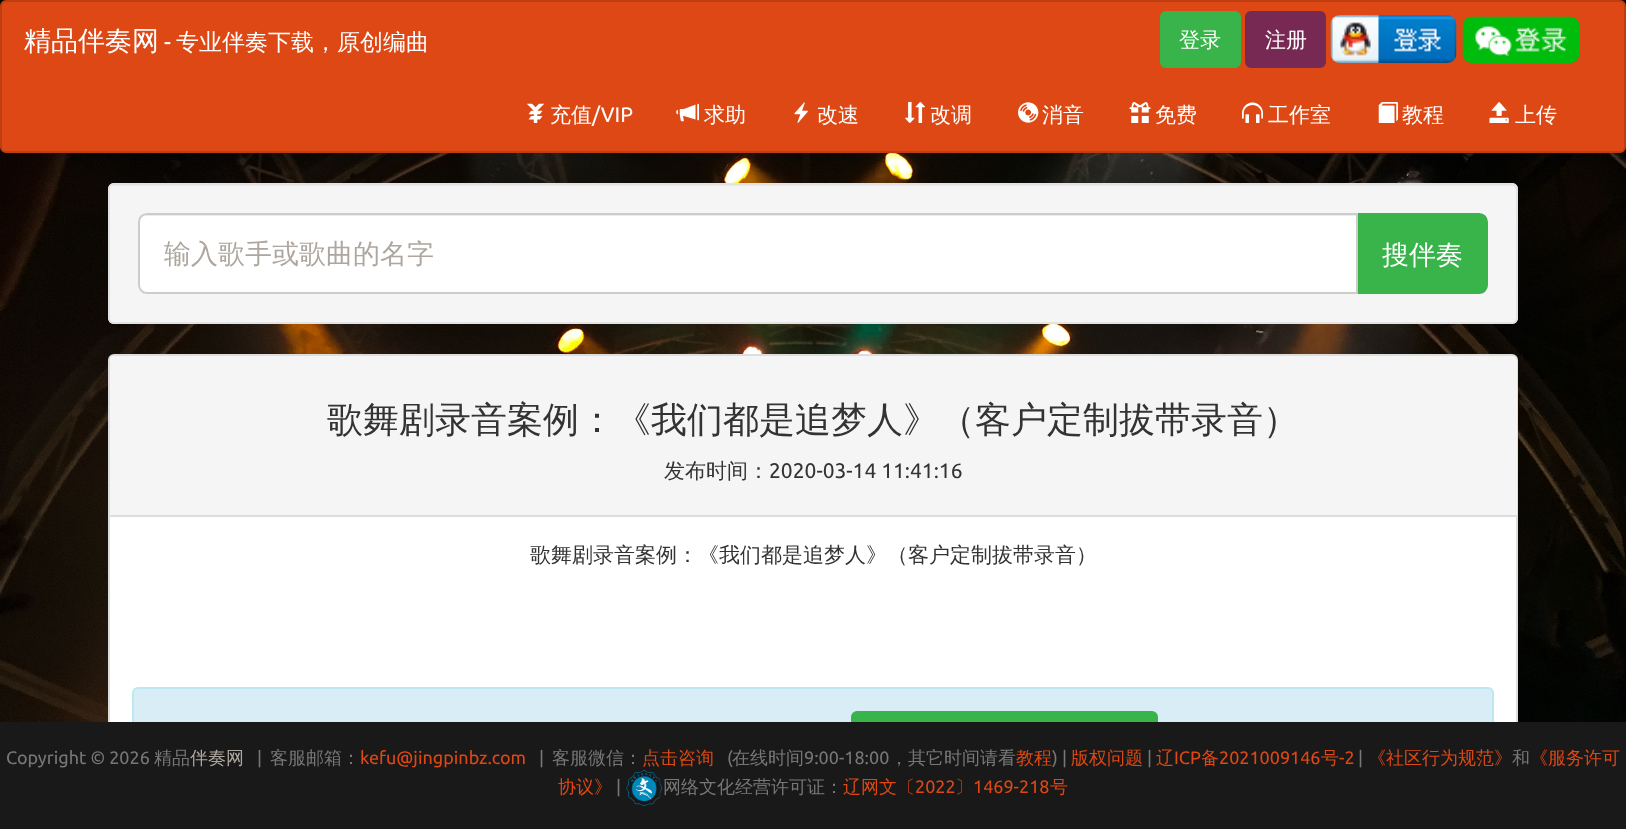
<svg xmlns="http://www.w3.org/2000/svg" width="1626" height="829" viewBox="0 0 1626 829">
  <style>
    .t1 { font: 500 27px WenQuanYi Zen Hei; fill: #fff; }
    .t2 { font: 23px Ubuntu; fill: #fff; }
    .t3 { font: 500 23px WenQuanYi Zen Hei; fill: #fff; }
    .t4 { font: 500 21px WenQuanYi Zen Hei; fill: #fff; }
    .t5 { font: 21px Ubuntu; fill: #fff; }
    .t6 { font: 500 27px WenQuanYi Zen Hei; fill: #aea79f; }
    .t7 { font: 500 36px WenQuanYi Zen Hei; fill: #333; }
    .t8 { font: 500 21px WenQuanYi Zen Hei; fill: #333; }
    .t9 { font: 21px Ubuntu; fill: #333; }
    .t10 { font: 18px Ubuntu; fill: #777; }
    .t11 { font: 500 18px WenQuanYi Zen Hei; fill: #777; }
    .t12 { font: 500 18px WenQuanYi Zen Hei; fill: #aea79f; }
    .t13 { font: 18px Ubuntu; fill: #dd4814; }
    .t14 { font: 500 18px WenQuanYi Zen Hei; fill: #dd4814; }
  </style>
  <rect width="100%" height="100%" fill="#fff"/>
  <image x="0" y="0" width="1626" height="722" href="images/1.png"/>
  <rect x="1" y="1" width="1624" height="151" rx="5" fill="#dd4814" stroke="#bf3e11" stroke-width="2"/>
  <text x="24" y="50" class="t1">精品伴奏网</text>
  <text x="164" y="50" class="t2">-</text>
  <text x="176" y="50" class="t3">专业伴奏下载，原创编曲</text>
  <rect x="1161" y="12" width="79" height="55" rx="5" fill="#38b44a" stroke="#38b44a" stroke-width="2"/>
  <text x="1179" y="47" class="t4">登录</text>
  <rect x="1246" y="12" width="79" height="55" rx="5" fill="#772953" stroke="#772953" stroke-width="2"/>
  <text x="1265" y="47" class="t4">注册</text>
  <image x="1330" y="15" width="127" height="48" href="images/2.png"/>
  <image x="1462" y="16" width="118" height="47" href="images/3.png"/>
  <image x="527" y="103" width="17" height="20" href="images/4.png"/>
  <text x="550" y="122" class="t4">充值</text>
  <text x="592" y="122" class="t5">/VIP</text>
  <image x="676" y="103" width="23" height="19" href="images/5.png"/>
  <text x="704" y="122" class="t4">求助</text>
  <image x="794" y="102" width="14" height="21" href="images/6.png"/>
  <text x="817" y="122" class="t4">改速</text>
  <image x="905" y="102" width="20" height="21" href="images/7.png"/>
  <text x="930" y="122" class="t4">改调</text>
  <image x="1018" y="102" width="21" height="21" href="images/8.png"/>
  <text x="1042" y="122" class="t4">消音</text>
  <image x="1129" y="102" width="22" height="21" href="images/9.png"/>
  <text x="1155" y="122" class="t4">免费</text>
  <image x="1242" y="102" width="21" height="21" href="images/10.png"/>
  <text x="1268" y="122" class="t4">工作室</text>
  <image x="1378" y="102" width="20" height="21" href="images/11.png"/>
  <text x="1402" y="122" class="t4">教程</text>
  <image x="1489" y="102" width="20" height="21" href="images/12.png"/>
  <text x="1515" y="122" class="t4">上传</text>
  <rect x="108" y="183" width="1410" height="141" rx="6" fill="#f5f5f5"/>
  <path d="M114 186H1512C1514 186 1516 188 1516 190V321C1517 320 1517 319 1517 318V190C1517 187 1515 185 1512 185H115C112 185 110 187 110 190C110 188 112 186 114 186Z" fill="#e9e9e9"/>
  <rect x="109" y="184" width="1408" height="139" rx="5" fill="none" stroke="#e3e3e3" stroke-width="2"/>
  <path d="M1357 214H1479C1483.5 214 1487 217.5 1487 222V285C1487 289.5 1483.5 293 1479 293H1357Z" fill="#38b44a" stroke="#38b44a" stroke-width="2"/>
  <path d="M147 213H1358V294H147C142 294 138 290 138 285V222C138 217 142 213 147 213Z" fill="#fff"/>
  <path d="M147 216H1356V215H148C144 215 140 219 140 223V224C140 219 143 216 147 216Z" fill="#ececec"/>
  <path d="M147 214H1357V293H147C142.5 293 139 289.5 139 285V222C139 217.5 142.5 214 147 214Z" fill="none" stroke="#ccc" stroke-width="2"/>
  <text x="164" y="263" class="t6">输入歌手或歌曲的名字</text>
  <text x="1382" y="264" class="t1">搜伴奏</text>
  <rect x="109" y="355" width="1408" height="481" rx="5" fill="#fff" stroke="#ddd" stroke-width="2"/>
  <path d="M115 356H1512C1515 356 1517 358 1517 361V516H110V361C110 358 112 356 115 356Z" fill="#f5f5f5"/>
  <rect x="110" y="515" width="1407" height="2" fill="#ddd"/>
  <text x="327" y="432" class="t7">歌舞剧录音案例：《我们都是追梦人》（客户定制拔带录音）</text>
  <text x="664" y="478" class="t8">发布时间：</text>
  <text x="769" y="478" class="t9">2020-03-14 11:41:16</text>
  <text x="530" y="562" class="t8">歌舞剧录音案例：《我们都是追梦人》（客户定制拔带录音）</text>
  <rect x="133" y="688" width="1360" height="103" rx="5" fill="#d9edf7" stroke="#bce8f1" stroke-width="2"/>
  <rect x="852" y="712" width="305" height="55" rx="5" fill="#38b44a" stroke="#38b44a" stroke-width="2"/>
  <rect x="0" y="722" width="1626" height="107" fill="#191919"/>
  <text x="6" y="764" class="t10">Copyright © 2026</text>
  <text x="154" y="764" class="t11">精品</text>
  <text x="190" y="764" class="t12">伴奏网</text>
  <text x="257" y="764" class="t10">|</text>
  <text x="270" y="764" class="t11">客服邮箱：</text>
  <text x="360" y="764" class="t13">kefu@jingpinbz.com</text>
  <text x="539" y="764" class="t10">|</text>
  <text x="552" y="764" class="t11">客服微信：</text>
  <text x="642" y="764" class="t14">点击咨询</text>
  <text x="727" y="764" class="t10">(</text>
  <text x="732" y="764" class="t11">在线时间</text>
  <text x="804" y="764" class="t10">9:00-18:00</text>
  <text x="890" y="764" class="t11">，其它时间请看</text>
  <text x="1016" y="764" class="t14">教程</text>
  <text x="1052" y="764" class="t10">) |</text>
  <text x="1071" y="764" class="t14">版权问题</text>
  <text x="1147" y="764" class="t10">|</text>
  <text x="1156" y="764" class="t14">辽</text>
  <text x="1174" y="764" class="t13">ICP</text>
  <text x="1201" y="764" class="t14">备</text>
  <text x="1219" y="764" class="t13">2021009146</text>
  <text x="1321" y="764" class="t14">号</text>
  <text x="1339" y="764" class="t13">-2</text>
  <text x="1358" y="764" class="t10">|</text>
  <text x="1368" y="764" class="t14">《社区行为规范》</text>
  <text x="1512" y="764" class="t11">和</text>
  <text x="1530" y="764" class="t14">《服务许可</text>
  <text x="558" y="793" class="t14">协议》</text>
  <text x="616" y="793" class="t10">|</text>
  <image x="626" y="770" width="37" height="37" href="images/13.png"/>
  <text x="663" y="793" class="t11">网络文化经营许可证：</text>
  <text x="843" y="793" class="t14">辽网文〔</text>
  <text x="915" y="793" class="t13">2022</text>
  <text x="955" y="793" class="t14">〕</text>
  <text x="973" y="793" class="t13">1469-218</text>
  <text x="1050" y="793" class="t14">号</text>
</svg>
